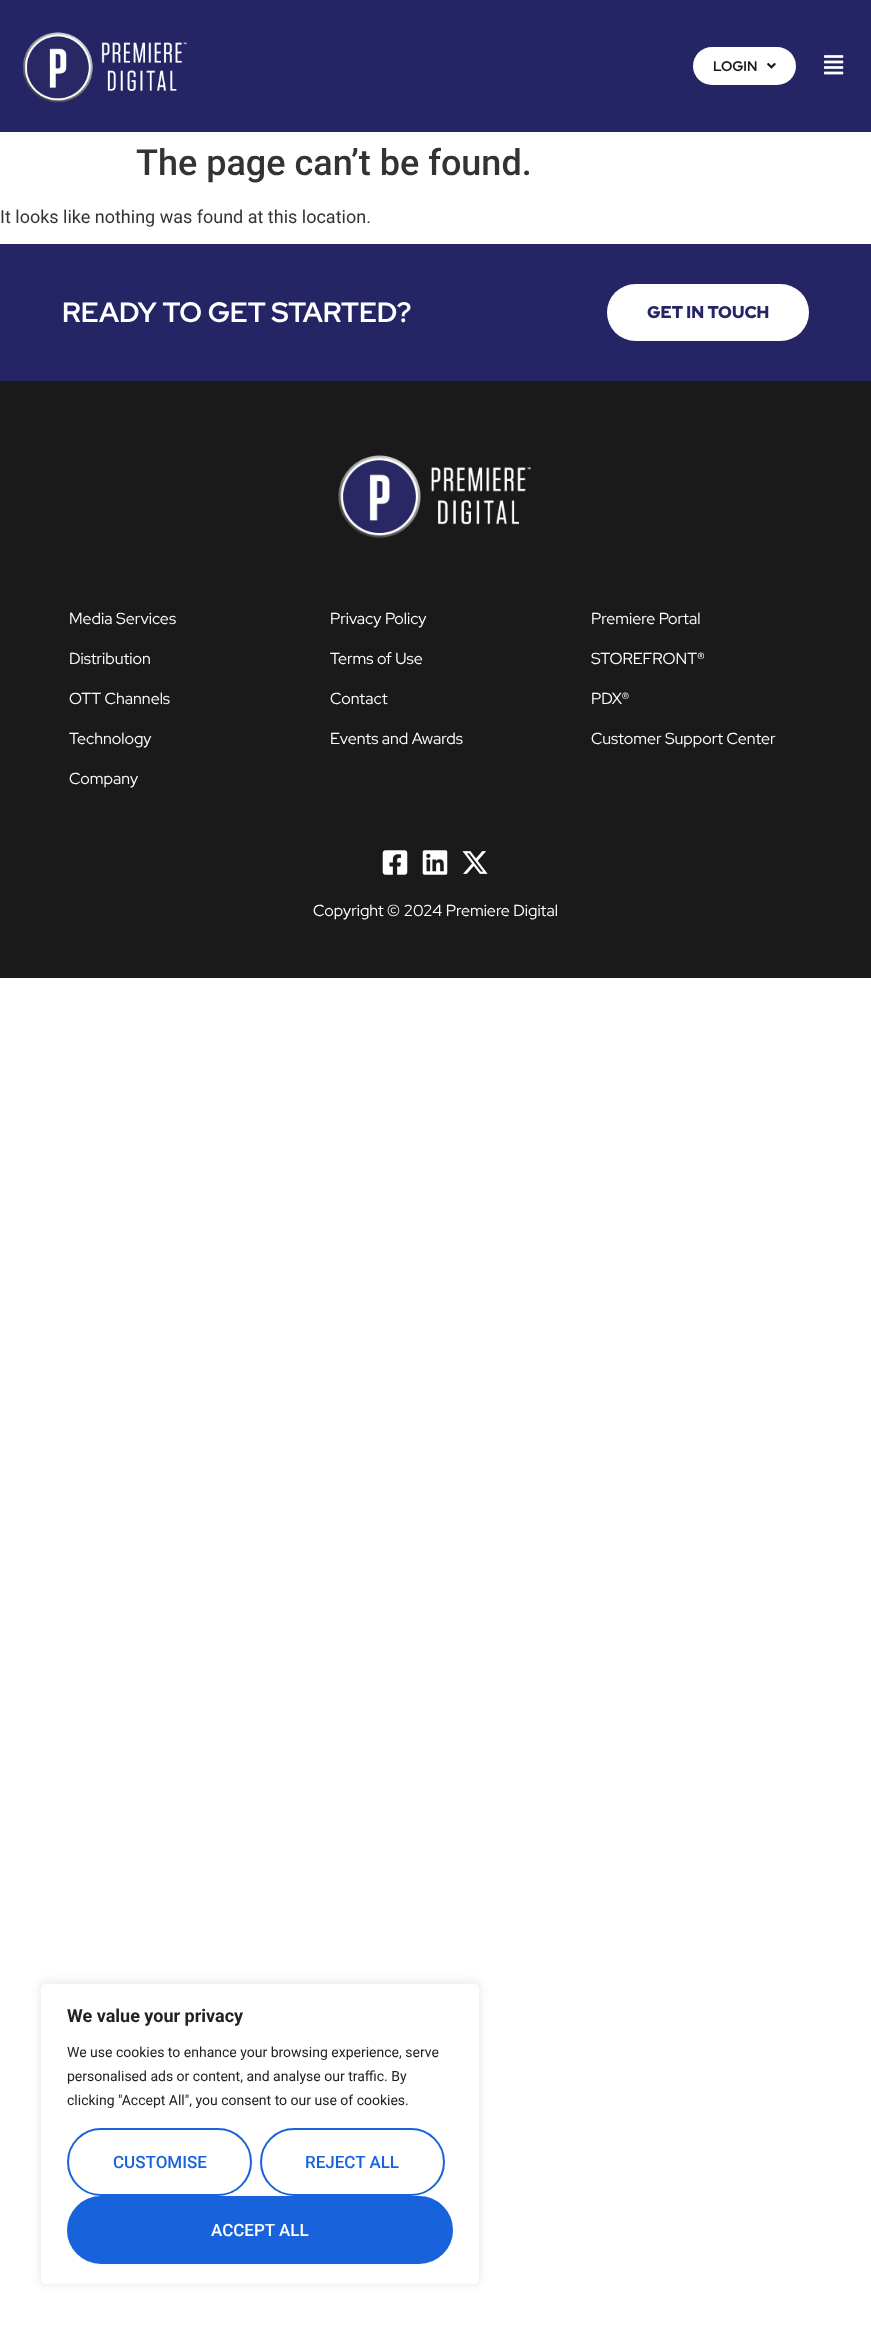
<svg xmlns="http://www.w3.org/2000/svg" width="871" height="2325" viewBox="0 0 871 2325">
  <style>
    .t1 { font: bold 14px Red Hat Display; fill: #1a1a1a; }
    .t2 { font: 500 36px Roboto; fill: #333; }
    .t3 { font: 18px Roboto; fill: #333; }
    .t4 { font: bold 28px Red Hat Display; fill: #fff; }
    .t5 { font: 900 17px Red Hat Display; fill: #252465; }
    .t6 { font: 16px Red Hat Display; fill: #fff; }
    .t7 { font: bold 18px Roboto; fill: #212121; }
    .t8 { font: 14px Roboto; fill: #212121; }
    .t9 { font: 500 17px Roboto; fill: #1863dc; }
    .t10 { font: 500 17px Roboto; fill: #fff; }
  </style>
  <rect width="100%" height="100%" fill="#fff"/>
  <rect x="0" y="0" width="871" height="132" fill="#252465"/>
  <image x="22" y="32" width="165" height="71" href="images/1.png"/>
  <rect x="693" y="47" width="103" height="38" rx="19" fill="#fff"/>
  <text x="713" y="71" class="t1">LOGIN</text>
  <image x="767" y="63" width="9" height="6" href="images/2.png"/>
  <image x="824" y="55" width="20" height="20" href="images/3.png"/>
  <text x="136" y="175" class="t2">The page can’t be found.</text>
  <text x="0" y="223" class="t3">It looks like nothing was found at this location.</text>
  <rect x="0" y="244" width="871" height="137" fill="#252465"/>
  <text x="62" y="322" class="t4">READY TO GET STARTED?</text>
  <rect x="607" y="284" width="202" height="57" rx="28.5" fill="#fff"/>
  <text x="647" y="318" class="t5">GET IN TOUCH</text>
  <rect x="0" y="381" width="871" height="597" fill="#1a1a1a"/>
  <image x="338" y="455" width="193" height="83" href="images/4.png"/>
  <text x="69" y="624" class="t6">Media Services</text>
  <text x="69" y="664" class="t6">Distribution</text>
  <text x="69" y="704" class="t6">OTT Channels</text>
  <text x="69" y="744" class="t6">Technology</text>
  <text x="69" y="784" class="t6">Company</text>
  <text x="330" y="624" class="t6">Privacy Policy</text>
  <text x="330" y="664" class="t6">Terms of Use</text>
  <text x="330" y="704" class="t6">Contact</text>
  <text x="330" y="744" class="t6">Events and Awards</text>
  <text x="591" y="624" class="t6">Premiere Portal</text>
  <text x="591" y="664" class="t6">STOREFRONT®</text>
  <text x="591" y="704" class="t6">PDX®</text>
  <text x="591" y="744" class="t6">Customer Support Center</text>
  <image x="382" y="850" width="26" height="25" href="images/5.png"/>
  <image x="422" y="850" width="26" height="25" href="images/6.png"/>
  <image x="462" y="851" width="26" height="23" href="images/7.png"/>
  <text x="313" y="916" class="t6">Copyright © 2024 Premiere Digital</text>
  <rect x="40" y="1982" width="440" height="302" rx="6" fill="#acabab4d" filter="blur(5px)"/>
  <rect x="40.5" y="1983.5" width="439" height="301" rx="5.5" fill="#fff" stroke="#f4f4f4"/>
  <text x="67" y="2022" class="t7">We value your privacy</text>
  <text x="67" y="2057" class="t8">We use cookies to enhance your browsing experience, serve</text>
  <text x="67" y="2081" class="t8">personalised ads or content, and analyse our traffic. By</text>
  <text x="67" y="2105" class="t8">clicking "Accept All", you consent to our use of cookies.</text>
  <rect x="68" y="2129" width="183" height="66" rx="33" fill="none" stroke="#1863dc" stroke-width="2"/>
  <text x="113" y="2168" class="t9">CUSTOMISE</text>
  <rect x="261" y="2129" width="183" height="66" rx="33" fill="none" stroke="#1863dc" stroke-width="2"/>
  <text x="305" y="2168" class="t9">REJECT ALL</text>
  <rect x="68" y="2197" width="384" height="66" rx="33" fill="#1863dc" stroke="#1863dc" stroke-width="2"/>
  <text x="211" y="2236" class="t10">ACCEPT ALL</text>
</svg>
